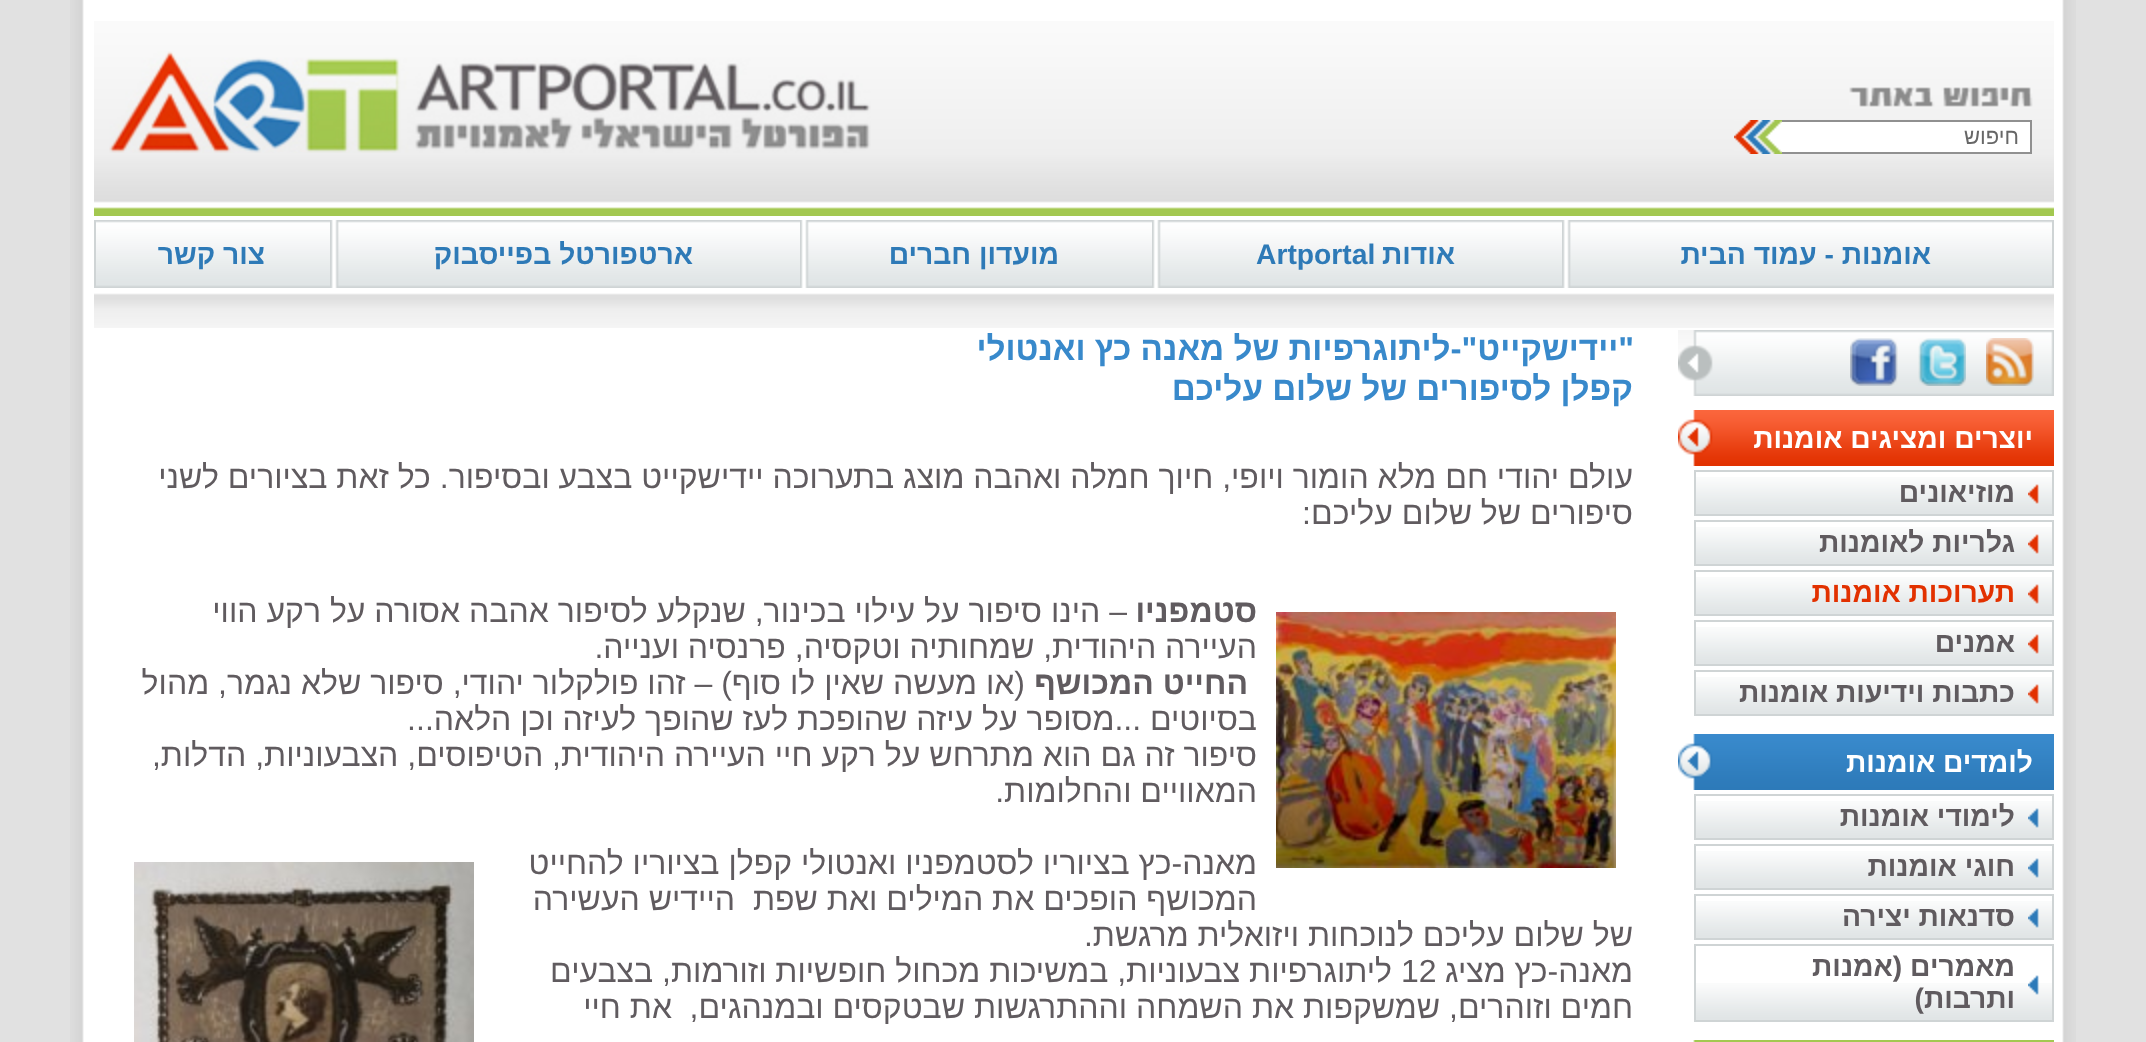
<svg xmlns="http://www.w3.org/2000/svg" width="2146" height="1042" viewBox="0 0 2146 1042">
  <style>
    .t1 { font: 22px Liberation Sans; direction: rtl; fill: #676767; }
    .t2 { font: bold 28.25px Liberation Sans; direction: rtl; fill: #2e7ab7; }
    .t3 { font: bold 28.25px Liberation Sans; fill: #2e7ab7; }
    .t4 { font: bold 28.25px Liberation Sans; direction: rtl; fill: #fff; }
    .t5 { font: bold 28.25px Liberation Sans; direction: rtl; fill: #605b5f; }
    .t6 { font: bold 28.25px Liberation Sans; direction: rtl; fill: #e23100; }
    .t7 { font: bold 33.25px Liberation Sans; direction: rtl; fill: #3889cb; }
    .t8 { font: 32px Liberation Sans; direction: rtl; fill: #605b5f; }
    .t9 { font: 32px Liberation Sans; fill: #605b5f; }
    .t10 { font: bold 32px Liberation Sans; direction: rtl; fill: #605b5f; }
  </style>
  <rect width="100%" height="100%" fill="#e1e1e1"/>
  <image x="70" y="0" width="2006" height="1042" href="images/1.png"/>
  <image x="94" y="21" width="1960" height="195" href="images/2.png"/>
  <image x="1849" y="87" width="184" height="20" href="images/3.png"/>
  <rect x="1782" y="122" width="248" height="30" fill="#fff"/>
  <rect x="1782" y="120" width="250" height="2" fill="#909090"/>
  <rect x="2030" y="120" width="2" height="34" fill="#909090"/>
  <rect x="1782" y="152" width="250" height="2" fill="#909090"/>
  <text x="2019" y="144" class="t1">חיפוש</text>
  <image x="1734" y="120" width="48" height="34" href="images/4.png"/>
  <image x="109" y="51" width="762" height="102" href="images/5.png"/>
  <image x="94" y="293" width="1960" height="35" href="images/6.png"/>
  <rect x="2052" y="220" width="2" height="68" fill="#cfd4d5"/>
  <rect x="94" y="220" width="2" height="68" fill="#cfd4d5"/>
  <image x="1562" y="220" width="490" height="68" href="images/7.png"/>
  <text x="1931" y="264" class="t2">אומנות - עמוד הבית</text>
  <image x="1152" y="220" width="410" height="68" href="images/8.png"/>
  <text x="1455" y="264" class="t2">אודות</text>
  <text x="1256" y="264" class="t3">Artportal</text>
  <image x="800" y="220" width="352" height="68" href="images/9.png"/>
  <text x="1059" y="264" class="t2">מועדון חברים</text>
  <image x="330" y="220" width="470" height="68" href="images/10.png"/>
  <text x="693" y="264" class="t2">ארטפורטל בפייסבוק</text>
  <image x="96" y="220" width="234" height="68" href="images/11.png"/>
  <text x="265" y="264" class="t2">צור קשר</text>
  <image x="1678" y="330" width="376" height="66" href="images/12.png"/>
  <image x="1986" y="338" width="48" height="48" href="images/13.png"/>
  <image x="1918" y="338" width="48" height="48" href="images/14.png"/>
  <image x="1850" y="338" width="48" height="48" href="images/15.png"/>
  <image x="1678" y="410" width="376" height="56" href="images/16.png"/>
  <text x="2033" y="448" class="t4">יוצרים ומציגים אומנות</text>
  <image x="1696" y="477" width="356" height="37" href="images/17.png"/>
  <rect x="1695" y="471" width="358" height="44" fill="none" stroke="#cfd4d5" stroke-width="2"/>
  <image x="2028" y="484" width="11" height="20" href="images/18.png"/>
  <text x="2015" y="502" class="t5">מוזיאונים</text>
  <image x="1696" y="527" width="356" height="37" href="images/17.png"/>
  <rect x="1695" y="521" width="358" height="44" fill="none" stroke="#cfd4d5" stroke-width="2"/>
  <image x="2028" y="534" width="11" height="20" href="images/18.png"/>
  <text x="2015" y="552" class="t5">גלריות לאומנות</text>
  <image x="1696" y="577" width="356" height="37" href="images/17.png"/>
  <rect x="1695" y="571" width="358" height="44" fill="none" stroke="#cfd4d5" stroke-width="2"/>
  <image x="2028" y="584" width="11" height="20" href="images/18.png"/>
  <text x="2015" y="602" class="t6">תערוכות אומנות</text>
  <image x="1696" y="627" width="356" height="37" href="images/17.png"/>
  <rect x="1695" y="621" width="358" height="44" fill="none" stroke="#cfd4d5" stroke-width="2"/>
  <image x="2028" y="634" width="11" height="20" href="images/18.png"/>
  <text x="2015" y="652" class="t5">אמנים</text>
  <image x="1696" y="677" width="356" height="37" href="images/17.png"/>
  <rect x="1695" y="671" width="358" height="44" fill="none" stroke="#cfd4d5" stroke-width="2"/>
  <image x="2028" y="684" width="11" height="20" href="images/18.png"/>
  <text x="2015" y="702" class="t5">כתבות וידיעות אומנות</text>
  <image x="1678" y="734" width="376" height="56" href="images/19.png"/>
  <text x="2033" y="772" class="t4">לומדים אומנות</text>
  <image x="1696" y="801" width="356" height="37" href="images/17.png"/>
  <rect x="1695" y="795" width="358" height="44" fill="none" stroke="#cfd4d5" stroke-width="2"/>
  <image x="2028" y="808" width="11" height="20" href="images/20.png"/>
  <text x="2015" y="826" class="t5">לימודי אומנות</text>
  <image x="1696" y="851" width="356" height="37" href="images/17.png"/>
  <rect x="1695" y="845" width="358" height="44" fill="none" stroke="#cfd4d5" stroke-width="2"/>
  <image x="2028" y="858" width="11" height="20" href="images/20.png"/>
  <text x="2015" y="876" class="t5">חוגי אומנות</text>
  <image x="1696" y="901" width="356" height="37" href="images/17.png"/>
  <rect x="1695" y="895" width="358" height="44" fill="none" stroke="#cfd4d5" stroke-width="2"/>
  <image x="2028" y="908" width="11" height="20" href="images/20.png"/>
  <text x="2015" y="926" class="t5">סדנאות יצירה</text>
  <image x="1696" y="983" width="356" height="37" href="images/17.png"/>
  <rect x="1695" y="945" width="358" height="76" fill="none" stroke="#cfd4d5" stroke-width="2"/>
  <image x="2028" y="975" width="11" height="20" href="images/21.png"/>
  <text x="2015" y="976" class="t5">מאמרים (אמנות</text>
  <text x="2015" y="1008" class="t5">ותרבות)</text>
  <image x="1678" y="1040" width="376" height="2" href="images/22.png"/>
  <text x="1634" y="360" class="t7">"יידישקייט"-ליתוגרפיות של מאנה כץ ואנטולי</text>
  <text x="1633" y="400" class="t7">קפלן לסיפורים של שלום עליכם</text>
  <text x="1633" y="488" class="t8">עולם יהודי חם מלא הומור ויופי, חיוך חמלה ואהבה מוצג בתערוכה יידישקייט בצבע ובסיפור. כל זאת בציורים לשני</text>
  <text x="1633" y="524" class="t8">סיפורים של</text>
  <text x="1472" y="524" class="t8">שלום עליכם</text>
  <text x="1302" y="524" class="t9">:</text>
  <image x="1276" y="612" width="340" height="256" href="images/23.png"/>
  <text x="1257" y="622" class="t10">סטמפניו</text>
  <text x="1127" y="622" class="t8">– הינו סיפור על עילוי בכינור, שנקלע לסיפור אהבה אסורה על רקע הווי</text>
  <text x="1257" y="658" class="t8">העיירה היהודית, שמחותיה וטקסיה, פרנסיה וענייה.</text>
  <text x="1248" y="694" class="t10">החייט המכושף</text>
  <text x="1025" y="694" class="t8">(או מעשה שאין לו סוף) – זהו פולקלור יהודי, סיפור שלא נגמר, מהול</text>
  <text x="1257" y="730" class="t8">בסיוטים ...מסופר על עיזה שהופכת לעז שהופך לעיזה וכן הלאה...</text>
  <text x="1257" y="766" class="t8">סיפור זה גם הוא מתרחש על רקע חיי העיירה היהודית, הטיפוסים, הצבעוניות, הדלות,</text>
  <text x="1257" y="802" class="t8">המאוויים והחלומות.</text>
  <text x="1257" y="874" class="t8">מאנה-כץ בציוריו לסטמפניו ואנטולי קפלן בציוריו להחייט</text>
  <image x="134" y="862" width="340" height="180" href="images/24.png"/>
  <text x="1257" y="910" class="t8">המכושף הופכים את המילים ואת שפת</text>
  <text x="735" y="910" class="t8">היידיש העשירה</text>
  <text x="1633" y="946" class="t8">של שלום עליכם לנוכחות ויזואלית מרגשת.</text>
  <text x="1633" y="982" class="t8">מאנה-כץ מציג</text>
  <text x="1401" y="982" class="t9">12</text>
  <text x="1392" y="982" class="t8">ליתוגרפיות צבעוניות, במשיכות מכחול חופשיות וזורמות, בצבעים</text>
  <text x="1633" y="1018" class="t8">חמים וזוהרים, שמשקפות את השמחה וההתרגשות שבטקסים ובמנהגים,</text>
  <text x="672" y="1018" class="t8">את חיי</text>
</svg>
